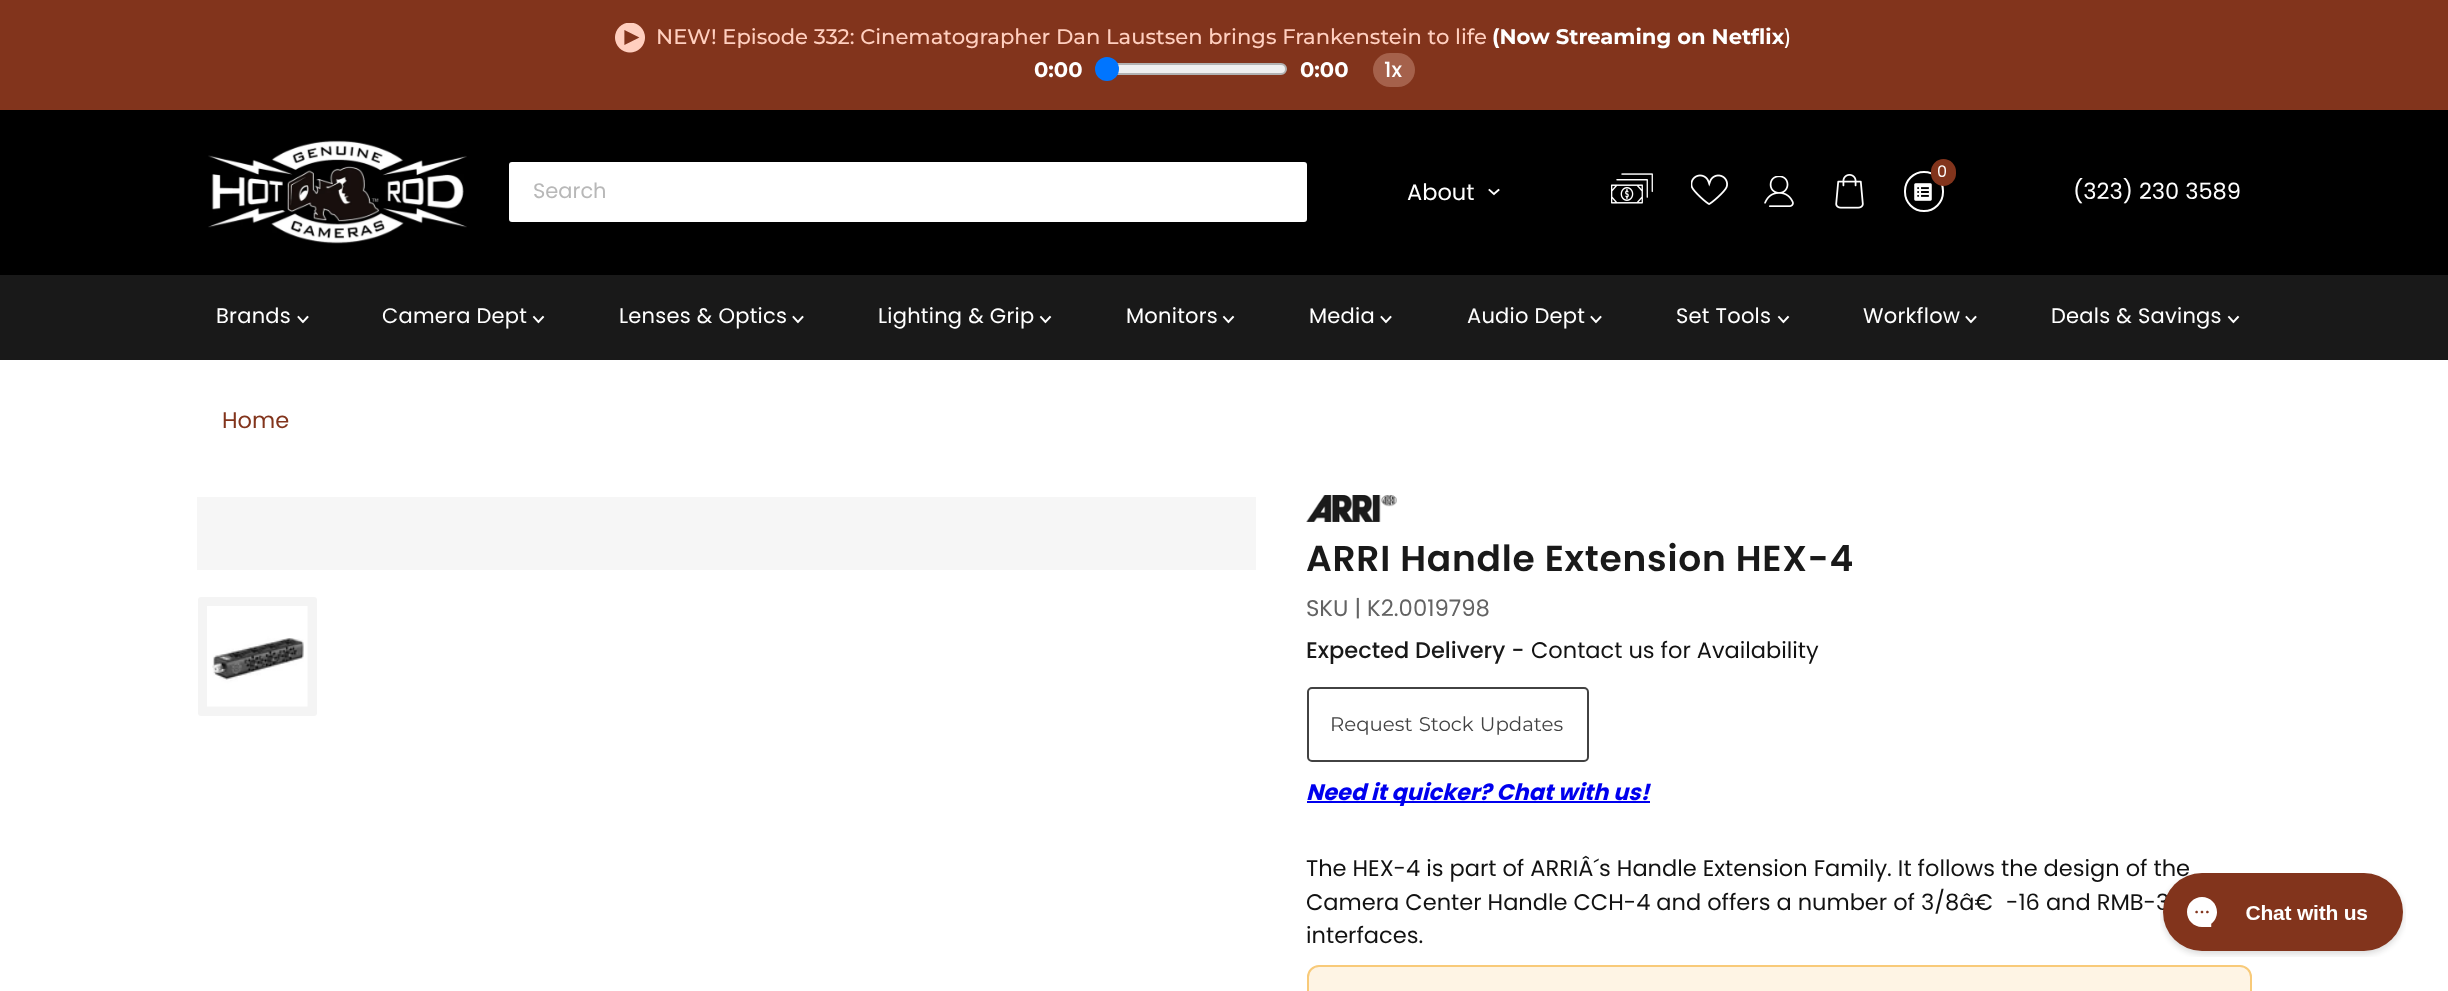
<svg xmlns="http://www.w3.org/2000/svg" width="2448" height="991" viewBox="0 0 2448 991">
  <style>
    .t1 { font: 500 21.1px Montserrat; fill: #ffcfbf; }
    .t2 { font: bold 21.1px Montserrat; fill: #fff; }
    .t3 { font: 500 21.1px Montserrat; fill: #fff; }
    .t4 { font: 500 21.1px Poppins; fill: #fff; }
    .t5 { font: 21px Poppins; fill: #b8b8b8; }
    .t6 { font: 16px Poppins; fill: #fff; }
    .t7 { font: 22.5px Poppins; fill: #fff; }
    .t8 { font: 21px Poppins; letter-spacing: 0.25px; fill: #fff; }
    .t9 { font: 22.5px Poppins; fill: #82341c; }
    .t10 { font: 600 36px Poppins; letter-spacing: 0.75px; fill: #191919; }
    .t11 { font: 22.75px Poppins; fill: #636363; }
    .t12 { font: 500 22.5px Poppins; fill: #191919; }
    .t13 { font: 22.5px Poppins; fill: #121212; }
    .t14 { font: 19.75px Montserrat; fill: #424242; }
    .t15 { font: italic bold 22.5px Poppins; fill: #00e; }
  </style>
  <rect width="100%" height="100%" fill="#fff"/>
  <rect x="0" y="0" width="2448" height="110" fill="#82341c"/>
  <image x="615" y="23" width="30" height="30" href="images/1.png"/>
  <text x="656" y="44" class="t1">NEW! Episode 332: Cinematographer Dan Laustsen brings Frankenstein to life</text>
  <text x="1492" y="44" class="t2">(Now Streaming on Netflix</text>
  <text x="1784" y="44" class="t3">)</text>
  <text x="1034" y="77" class="t2">0:00</text>
  <rect x="1098" y="64" width="188" height="10" rx="5" fill="#efefef" stroke="#b2b2b2" stroke-width="2"/>
  <circle cx="1107" cy="69" r="12" fill="#0075ff"/>
  <text x="1300" y="77" class="t2">0:00</text>
  <rect x="1373" y="53" width="42" height="34" rx="17" fill="#a5614b"/>
  <text x="1384" y="77" class="t4">1x</text>
  <rect x="0" y="110" width="2448" height="165" fill="#000"/>
  <image x="208" y="140" width="259" height="104" href="images/2.png"/>
  <rect x="509" y="162" width="798" height="60" rx="3" fill="#fff"/>
  <text x="533" y="198" class="t5">Search</text>
  <rect x="1905" y="172" width="38" height="39" rx="19" fill="none" stroke="#fff" stroke-width="2"/>
  <image x="1914" y="183" width="18" height="18" href="images/3.png"/>
  <rect x="1931" y="159" width="25" height="27" rx="12.5" fill="#82341c"/>
  <text x="1937" y="177" class="t6">0</text>
  <image x="1835" y="174" width="29" height="35" href="images/4.png"/>
  <text x="1407" y="200" class="t7">About</text>
  <path d="M1494 194L1498.5 190M1494 194L1489.5 190" fill="none" stroke="#fff" stroke-width="1.9" stroke-linecap="square"/>
  <image x="1611" y="173" width="42" height="31" href="images/5.png"/>
  <image x="1691" y="174" width="37" height="31" href="images/6.png"/>
  <image x="1764" y="176" width="30" height="31" href="images/7.png"/>
  <text x="2073" y="199" class="t7">(323) 230 3589</text>
  <rect x="0" y="275" width="2448" height="85" fill="#191919"/>
  <text x="216" y="323" class="t8">Brands</text>
  <path d="M303 322L307.5 317M303 322L298.5 317" fill="none" stroke="#fff" stroke-width="1.9" stroke-linecap="square"/>
  <text x="382" y="323" class="t8">Camera Dept</text>
  <path d="M538.5 322L543 317M538.5 322L534 317" fill="none" stroke="#fff" stroke-width="1.9" stroke-linecap="square"/>
  <text x="619" y="323" class="t8">Lenses &amp; Optics</text>
  <path d="M798 322L802.5 317M798 322L793.5 317" fill="none" stroke="#fff" stroke-width="1.9" stroke-linecap="square"/>
  <text x="878" y="323" class="t8">Lighting &amp; Grip</text>
  <path d="M1045.5 322L1050 317M1045.5 322L1041 317" fill="none" stroke="#fff" stroke-width="1.9" stroke-linecap="square"/>
  <text x="1126" y="323" class="t8">Monitors</text>
  <path d="M1228.5 322L1233 317M1228.5 322L1224 317" fill="none" stroke="#fff" stroke-width="1.9" stroke-linecap="square"/>
  <text x="1309" y="323" class="t8">Media</text>
  <path d="M1386 322L1390.5 317M1386 322L1381.5 317" fill="none" stroke="#fff" stroke-width="1.9" stroke-linecap="square"/>
  <text x="1467" y="323" class="t8">Audio Dept</text>
  <path d="M1596 322L1600.5 317M1596 322L1591.5 317" fill="none" stroke="#fff" stroke-width="1.9" stroke-linecap="square"/>
  <text x="1676" y="323" class="t8">Set Tools</text>
  <path d="M1783.5 322L1788 317M1783.5 322L1779 317" fill="none" stroke="#fff" stroke-width="1.9" stroke-linecap="square"/>
  <text x="1863" y="323" class="t8">Workflow</text>
  <path d="M1971 322L1975.5 317M1971 322L1966.5 317" fill="none" stroke="#fff" stroke-width="1.9" stroke-linecap="square"/>
  <text x="2051" y="323" class="t8">Deals &amp; Savings</text>
  <path d="M2233.5 322L2238 317M2233.5 322L2229 317" fill="none" stroke="#fff" stroke-width="1.9" stroke-linecap="square"/>
  <text x="222" y="428" class="t9">Home</text>
  <rect x="197" y="497" width="1059" height="73" fill="#f6f6f6"/>
  <rect x="198" y="597" width="119" height="119" rx="3" fill="#f4f4f4"/>
  <image x="207" y="606" width="101" height="101" href="images/8.png"/>
  <image x="1306" y="495" width="91" height="27" href="images/9.png"/>
  <text x="1306" y="571" class="t10">ARRI Handle Extension HEX-4</text>
  <text x="1306" y="616" class="t11">SKU | K2.0019798</text>
  <text x="1306" y="658" class="t12">Expected Delivery -</text>
  <text x="1531" y="658" class="t13">Contact us for Availability</text>
  <rect x="1308" y="688" width="280" height="73" rx="4" fill="none" stroke="#424242" stroke-width="2"/>
  <text x="1330" y="731" word-spacing="1" class="t14">Request Stock Updates</text>
  <rect x="1307" y="801" width="343" height="2" fill="#00e"/>
  <text x="1306" y="800" class="t15">Need it quicker? Chat with us!</text>
  <text x="1306" y="876" class="t13">The HEX-4 is part of ARRIÂ´s Handle Extension Family. It follows the design of the</text>
  <text x="1306" y="910" class="t13">Camera Center Handle CCH-4 and offers a number of 3/8â€</text>
  <text x="2006" y="910" class="t13">-16 and RMB-3</text>
  <text x="1306" y="943" class="t13">interfaces.</text>
  <rect x="1308" y="966" width="943" height="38" rx="11" fill="#fef4e4" stroke="#f8ca79" stroke-width="2"/>
  <image x="2160" y="873" width="246" height="84" href="images/10.png"/>
</svg>
